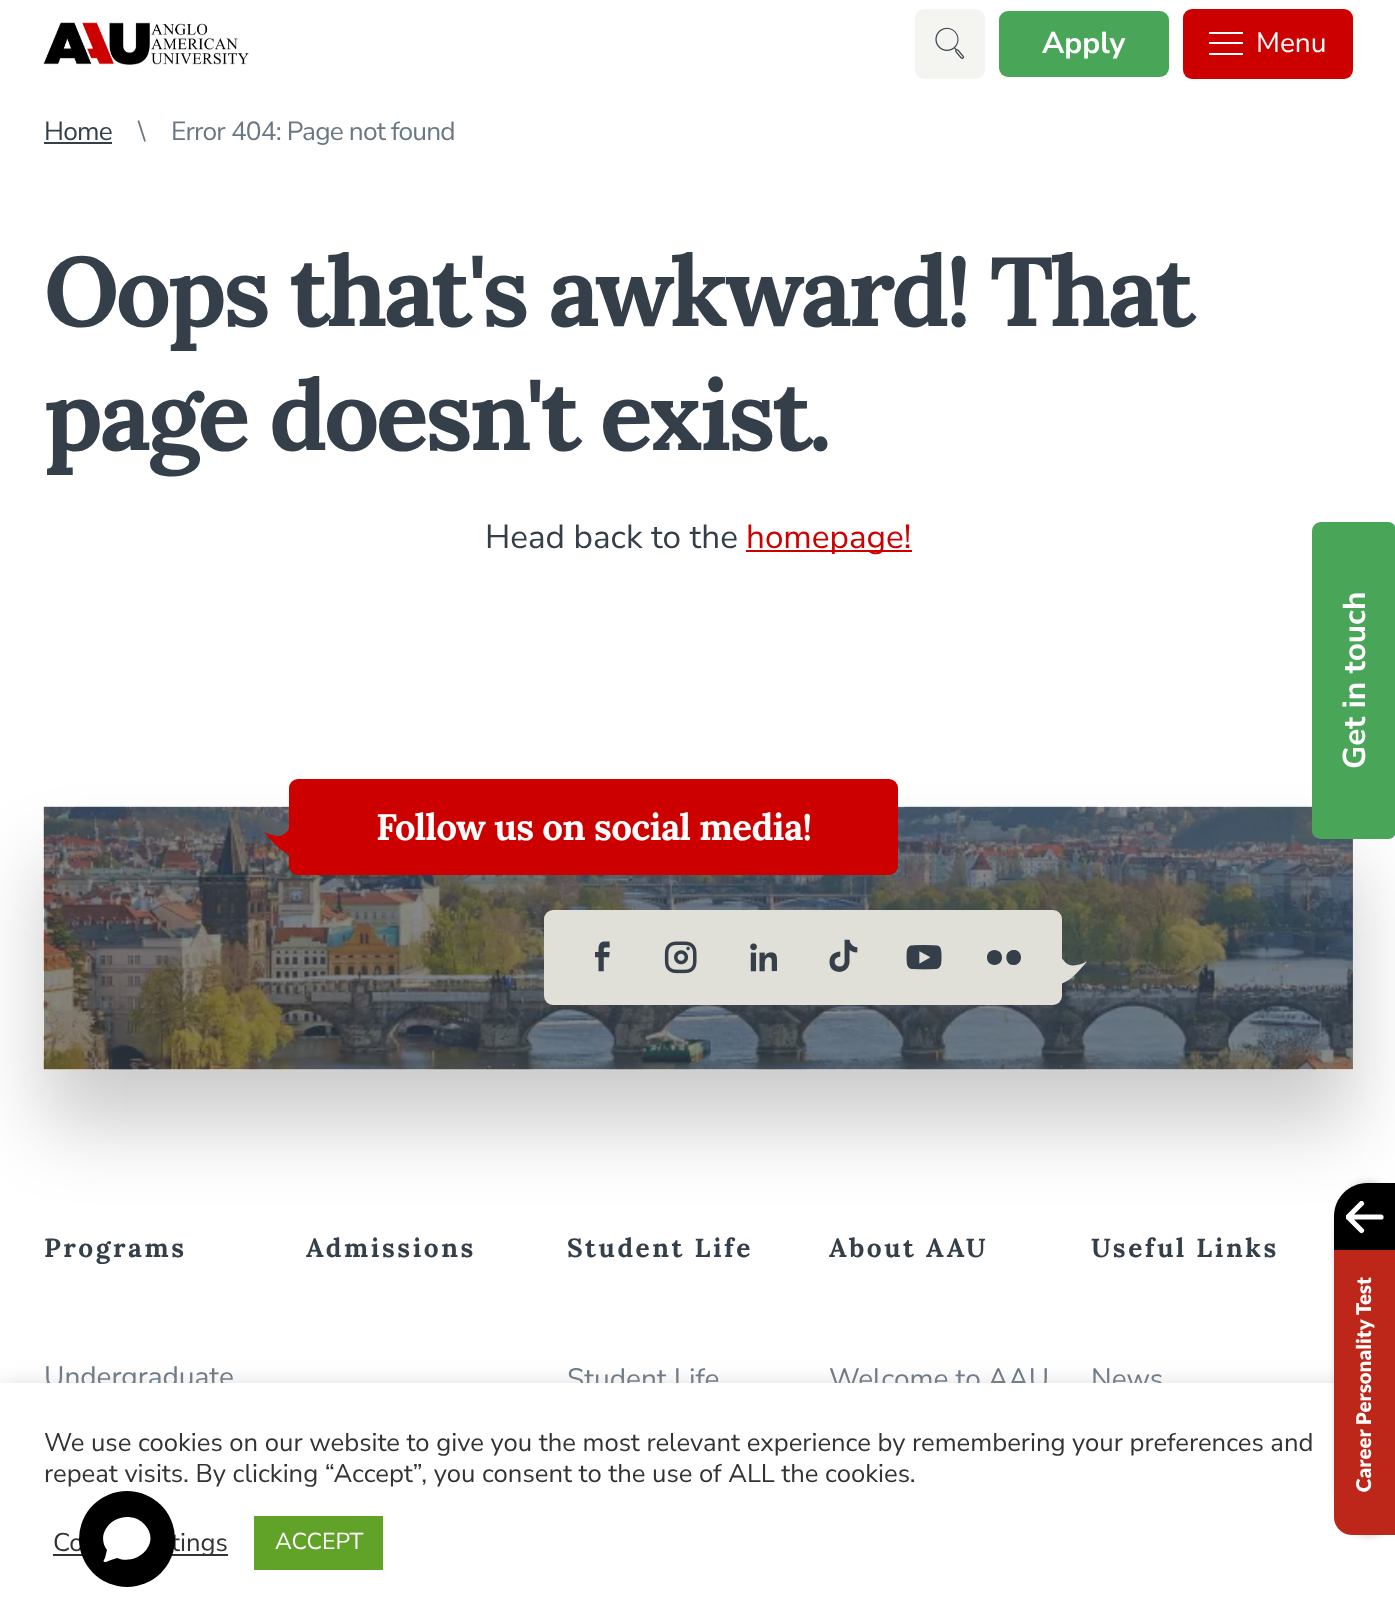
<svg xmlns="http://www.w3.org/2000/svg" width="1395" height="1621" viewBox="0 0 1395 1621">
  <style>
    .t1 { font: bold 30px Nunito Sans; fill: #fff; }
    .t2 { font: 28px Nunito Sans; fill: #fff; }
    .t3 { font: 26.25px Nunito Sans; letter-spacing: -0.8px; fill: #343f49; }
    .t4 { font: 26.25px Nunito Sans; letter-spacing: -0.8px; fill: #6a7884; }
    .t5 { font: bold 98px Lora; letter-spacing: -3.5px; fill: #343f49; }
    .t6 { font: 33.25px Nunito Sans; fill: #343f49; }
    .t7 { font: 33.25px Nunito Sans; fill: #cd0000; }
    .t8 { font: bold 31.5px Nunito Sans; fill: #fff; }
    .t9 { font: bold 36.75px Lora; letter-spacing: -0.7px; fill: #fff; }
    .t10 { font: bold 26.25px Lora; letter-spacing: 2.6px; fill: #343f49; }
    .t11 { font: 28px Nunito Sans; fill: #6a7884; }
    .t12 { font: 25.65px Nunito Sans; fill: #333; }
    .t13 { font: 23px Nunito Sans; fill: #fff; }
    .t14 { font: 900 20.25px Lato; fill: #fff; }
  </style>
  <defs>
    <clipPath id="clip1"><rect x="1346" y="1201" width="38" height="33"/></clipPath>
  </defs>
  <rect width="100%" height="100%" fill="#fff"/>
  <image x="43" y="22" width="206" height="43" href="images/1.png"/>
  <rect x="915" y="9" width="70" height="70" rx="9" fill="#f4f4f1"/>
  <image x="935" y="27" width="29" height="32" href="images/2.png"/>
  <rect x="999" y="11" width="170" height="66" rx="9" fill="#49a658"/>
  <text x="1042" y="53" class="t1">Apply</text>
  <rect x="1183" y="9" width="170" height="70" rx="9" fill="#cd0000"/>
  <rect x="1209" y="42" width="34" height="2" fill="#fff"/>
  <rect x="1209" y="32" width="34" height="2" fill="#fff"/>
  <rect x="1209" y="53" width="34" height="2" fill="#fff"/>
  <text x="1256" y="52" class="t2">Menu</text>
  <text x="44" y="140" class="t3">Home</text>
  <rect x="44" y="142" width="68" height="2" fill="#343f49"/>
  <text x="138" y="140" class="t4">\</text>
  <text x="171" y="140" class="t4">Error 404: Page not found</text>
  <text x="44" y="326" class="t5">Oops that's awkward! That</text>
  <text x="44" y="450" class="t5">page doesn't exist.</text>
  <text x="485" y="548" class="t6">Head back to the</text>
  <rect x="746" y="550" width="166" height="2" fill="#cd0000"/>
  <text x="746" y="548" class="t7">homepage!</text>
  <rect x="44" y="863" width="1309" height="262" fill="#00000033" filter="blur(38.5px)"/>
  <image x="43" y="806" width="1310" height="264" href="images/3.png"/>
  <rect x="44" y="807" width="1309" height="262" fill="#343f4999"/>
  <path d="M1388 839H1321C1316 839 1312 835 1312 831V531C1312 526 1316 522 1321 522H1388C1393 522 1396 526 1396 531V831C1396 835 1393 839 1388 839Z" fill="#49a658"/>
  <text x="1365" y="769" transform="rotate(-90 1365 769)" class="t8">Get in touch</text>
  <rect x="289" y="779" width="609" height="96" rx="9" fill="#cd0000"/>
  <path d="M289 854C279 850.5 270.5 839.5 264 832C270.5 835 280 838.5 285.5 833L289 829Z" fill="#cd0000"/>
  <text x="376" y="840" class="t9">Follow us on social media!</text>
  <rect x="544" y="910" width="518" height="95" rx="9" fill="#e0e0d9"/>
  <image x="595" y="941" width="15" height="31" href="images/4.png"/>
  <image x="664" y="941" width="33" height="33" href="images/5.png"/>
  <image x="750" y="943" width="27" height="29" href="images/6.png"/>
  <image x="829" y="939" width="29" height="33" href="images/7.png"/>
  <image x="906" y="945" width="36" height="25" href="images/8.png"/>
  <path d="M994.5 965C984.5 965 984.5 950 994.5 950C1004.5 950 1004.5 965 994.5 965ZM1014 965C1004.5 965.5 1003.5 951 1013 950C1023 949 1024 964.5 1014 965Z" fill="#343f49"/>
  <path d="M1062 983.5C1072 980 1080.5 969 1087 961.5C1080.5 964.5 1071 968 1065.5 962.5L1062 958.5Z" fill="#e0e0d9"/>
  <text x="44" y="1257" class="t10">Programs</text>
  <text x="44" y="1386" class="t11">Undergraduate</text>
  <text x="306" y="1257" class="t10">Admissions</text>
  <text x="567" y="1257" class="t10">Student Life</text>
  <text x="567" y="1388" class="t11">Student Life</text>
  <text x="829" y="1257" class="t10">About AAU</text>
  <text x="829" y="1388" class="t11">Welcome to AAU</text>
  <text x="1091" y="1257" class="t10">Useful Links</text>
  <text x="1091" y="1388" class="t11">News</text>
  <rect x="0" y="1381" width="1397" height="240" fill="#acabab4d" filter="blur(9px)"/>
  <rect x="0" y="1383" width="1395" height="238" fill="#fff"/>
  <text x="44" y="1451" class="t12">We use cookies on our website to give you the most relevant experience by remembering your preferences and</text>
  <text x="44" y="1482" class="t12">repeat visits. By clicking “Accept”, you consent to the use of ALL the cookies.</text>
  <text x="53" y="1551" class="t12">Co</text>
  <rect x="53" y="1554" width="175" height="2" fill="#333"/>
  <text x="171" y="1551" class="t12">tings</text>
  <rect x="254" y="1516" width="129" height="54" fill="#61a229"/>
  <text x="275" y="1549" class="t13">ACCEPT</text>
  <rect x="1337" y="1183" width="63" height="352" rx="53" fill="#00000040" filter="blur(4.5px)"/>
  <path d="M1367 1183H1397V1250H1334V1216C1334 1198 1349 1183 1367 1183Z" fill="#000"/>
  <g clip-path="url(#clip1)">
    <path d="M1381 1217H1348M1361.5 1203.5L1348 1217L1361.5 1230.5" fill="none" stroke="#fff" stroke-width="5.2" stroke-linecap="round" stroke-linejoin="round"/>
  </g>
  <path d="M1334 1250H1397V1535H1352C1342 1535 1334 1527 1334 1517Z" fill="#bc271a"/>
  <text x="1371" y="1492" transform="rotate(-90 1371 1492)" class="t14">Career Personality Test</text>
  <circle cx="127" cy="1539" r="48" fill="#000"/>
  <path d="M127 1517C110 1517 96 1535 107 1550L105 1558C104 1560 102 1562 106 1562L111 1560L117 1558C139 1567 163 1541 143 1523C139 1519 133 1517 127 1517Z" fill="#fff"/>
</svg>
